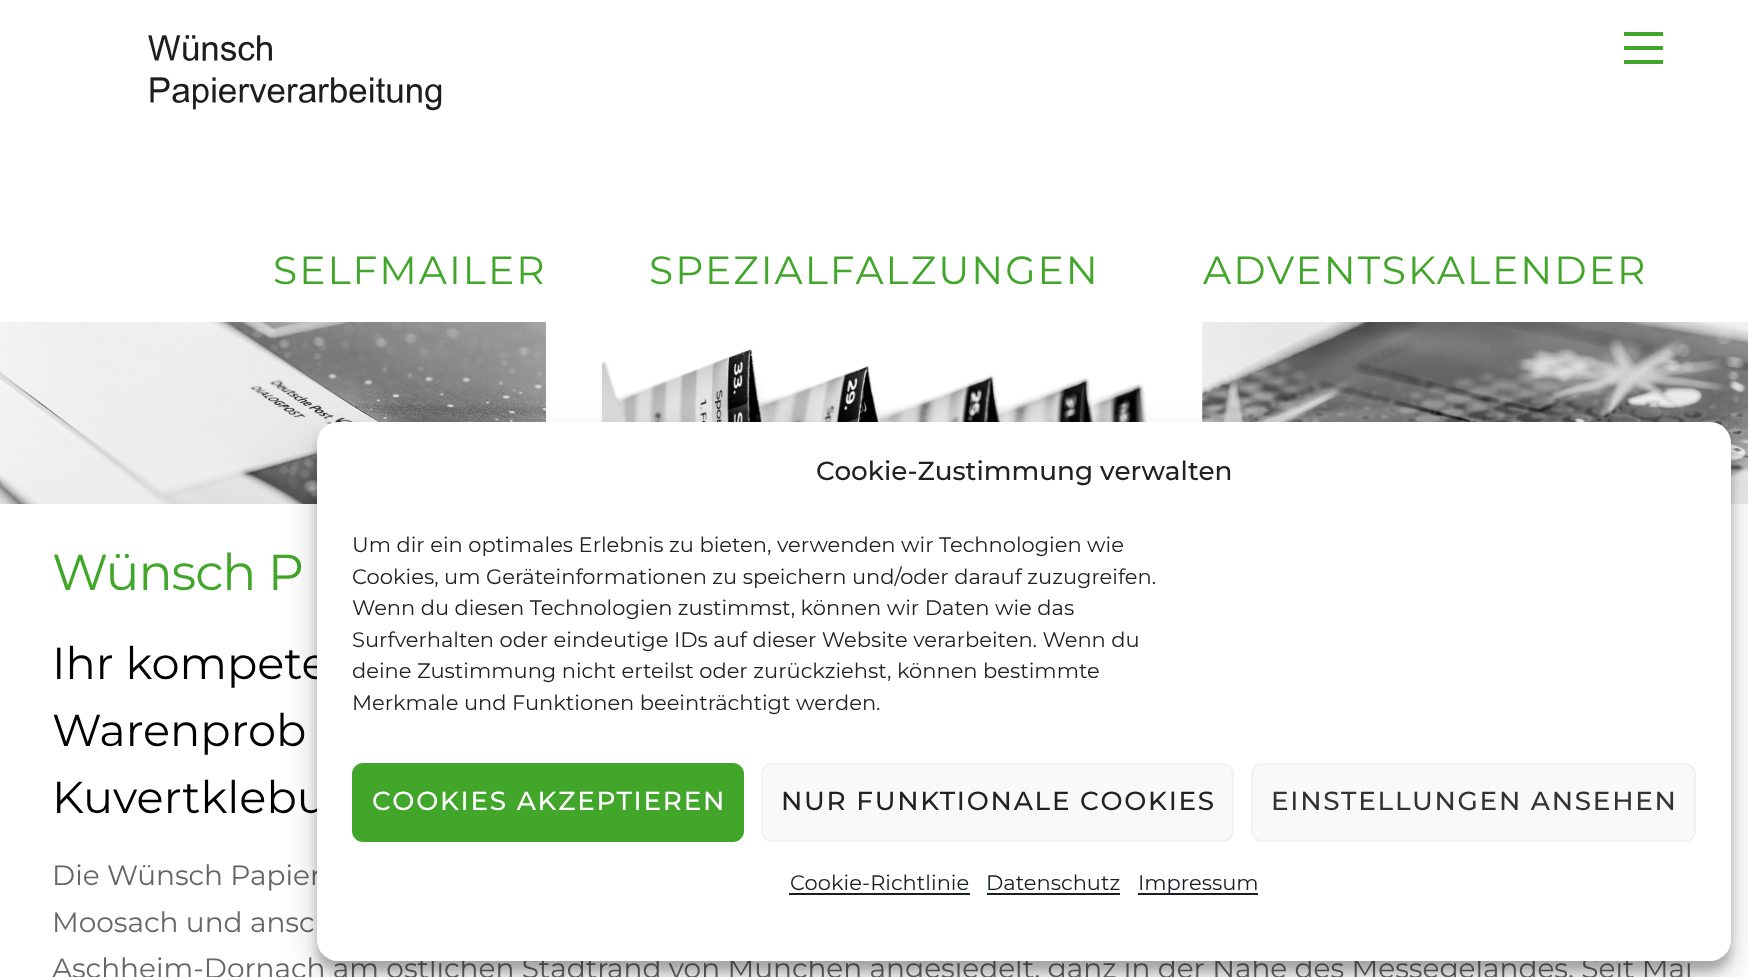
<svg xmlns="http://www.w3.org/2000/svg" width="1748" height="977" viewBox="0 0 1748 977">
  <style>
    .t1 { font: 100 39.25px Montserrat; letter-spacing: 2px; fill: #41a62a; }
    .t2 { font: 100 50.5px Montserrat; letter-spacing: -1px; fill: #41a62a; }
    .t3 { font: 100 44.75px Montserrat; fill: #000; }
    .t4 { font: 100 28px Montserrat; fill: #666; }
    .t5 { font: 100 26.25px 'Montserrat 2'; fill: #222; }
    .t6 { font: 100 21px Montserrat; fill: #222; }
    .t7 { font: 100 26.25px 'Montserrat 2'; letter-spacing: 1.75px; fill: #fff; }
    .t8 { font: 100 26.25px 'Montserrat 2'; letter-spacing: 1.75px; fill: #222; }
    .t9 { font: 100 26.25px 'Montserrat 2'; letter-spacing: 1.75px; fill: #333; }
    .t10 { font: 100 21px Montserrat; fill: #191e23; }
  </style>
  <rect width="100%" height="100%" fill="#fff"/>
  <image x="148" y="35" width="294" height="76" href="images/1.png"/>
  <rect x="1624" y="60" width="39" height="4" fill="#41a62a"/>
  <rect x="1624" y="32" width="39" height="4" fill="#41a62a"/>
  <rect x="1624" y="46" width="39" height="4" fill="#41a62a"/>
  <text x="273" y="284" class="t1">SELFMAILER</text>
  <image x="0" y="322" width="546" height="182" href="images/2.png"/>
  <text x="649" y="284" class="t1">SPEZIALFALZUNGEN</text>
  <image x="602" y="349" width="545" height="73" href="images/3.png"/>
  <text x="1203" y="284" class="t1">ADVENTSKALENDER</text>
  <image x="1202" y="322" width="546" height="182" href="images/4.png"/>
  <text x="52" y="590" class="t2">Wünsch P</text>
  <text x="52" y="679" class="t3">Ihr kompete</text>
  <text x="52" y="746" class="t3">Warenprob</text>
  <text x="52" y="813" class="t3">Kuvertklebu</text>
  <text x="52" y="885" class="t4">Die Wünsch Papier</text>
  <text x="52" y="932" class="t4">Moosach und ansc</text>
  <text x="52" y="978" class="t4">Aschheim-Dornach am östlichen Stadtrand von München angesiedelt, ganz in der Nähe des Messegeländes. Seit Mai</text>
  <rect x="317" y="432" width="1414" height="539" rx="21" fill="#0000003b" filter="blur(5px)"/>
  <rect x="317" y="439" width="1414" height="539" rx="21" fill="#00000030" filter="blur(17.5px)"/>
  <rect x="317" y="422" width="1414" height="539" rx="21" fill="#fff"/>
  <text x="816" y="480" class="t5">Cookie-Zustimmung verwalten</text>
  <text x="352" y="552" class="t6">Um dir ein optimales Erlebnis zu bieten, verwenden wir Technologien wie</text>
  <text x="352" y="584" class="t6">Cookies, um Geräteinformationen zu speichern und/oder darauf zuzugreifen.</text>
  <text x="352" y="615" class="t6">Wenn du diesen Technologien zustimmst, können wir Daten wie das</text>
  <text x="352" y="647" class="t6">Surfverhalten oder eindeutige IDs auf dieser Website verarbeiten. Wenn du</text>
  <text x="352" y="678" class="t6">deine Zustimmung nicht erteilst oder zurückziehst, können bestimmte</text>
  <text x="352" y="710" class="t6">Merkmale und Funktionen beeinträchtigt werden.</text>
  <rect x="353" y="764" width="390" height="77" rx="10" fill="#41a62a" stroke="#41a62a" stroke-width="2"/>
  <text x="372" y="810" class="t7">COOKIES AKZEPTIEREN</text>
  <rect x="762" y="764" width="471" height="77" rx="10" fill="#f9f9f9" stroke="#f2f2f2" stroke-width="2"/>
  <text x="781" y="810" class="t8">NUR FUNKTIONALE COOKIES</text>
  <rect x="1252" y="764" width="443" height="77" rx="10" fill="#f9f9f9" stroke="#f2f2f2" stroke-width="2"/>
  <text x="1271" y="810" class="t9">EINSTELLUNGEN ANSEHEN</text>
  <text x="790" y="890" class="t10">Cookie-Richtlinie</text>
  <rect x="789" y="893" width="181" height="2" fill="#191e23"/>
  <text x="986" y="890" class="t10">Datenschutz</text>
  <rect x="987" y="893" width="133" height="2" fill="#191e23"/>
  <rect x="1138" y="893" width="120" height="2" fill="#191e23"/>
  <text x="1138" y="890" class="t10">Impressum</text>
</svg>
